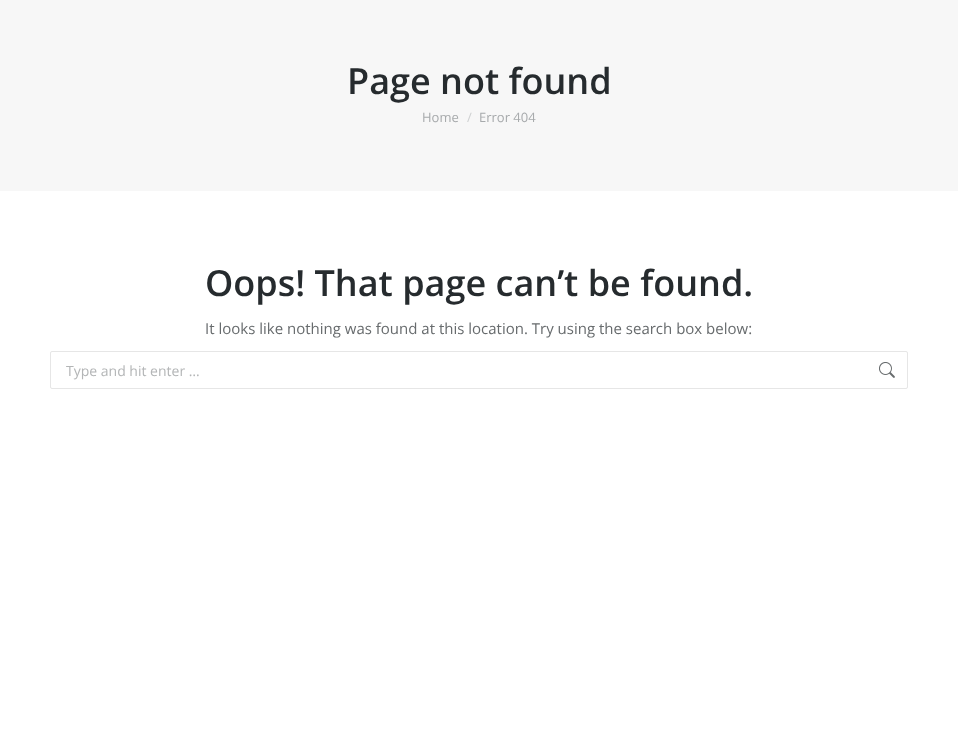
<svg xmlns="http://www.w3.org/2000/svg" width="958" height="753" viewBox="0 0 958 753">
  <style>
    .t1 { font: 600 36px Open Sans; fill: #262b2e; }
    .t2 { font: 13px Open Sans; fill: #a7aaac; }
    .t3 { font: 13px Open Sans; fill: #cfd1d2; }
    .t4 { font: 15px Open Sans; fill: #676b6d; }
    .t5 { font: 14px Open Sans; fill: #b3b5b6; }
  </style>
  <rect width="100%" height="100%" fill="#fff"/>
  <rect x="0" y="0" width="958" height="191" fill="#f7f7f7"/>
  <text x="347" y="94" class="t1">Page not found</text>
  <text x="422" y="122" class="t2">Home</text>
  <text x="467" y="122" class="t3">/</text>
  <text x="479" y="122" class="t2">Error 404</text>
  <text x="205" y="296" class="t1">Oops! That page can’t be found.</text>
  <text x="205" y="334" class="t4">It looks like nothing was found at this location. Try using the search box below:</text>
  <rect x="50.5" y="351.5" width="857" height="37" rx="1.5" fill="none" stroke="#e6e6e6"/>
  <text x="66" y="376" class="t5">Type and hit enter …</text>
  <image x="879" y="362" width="16" height="16" href="images/1.png"/>
</svg>
